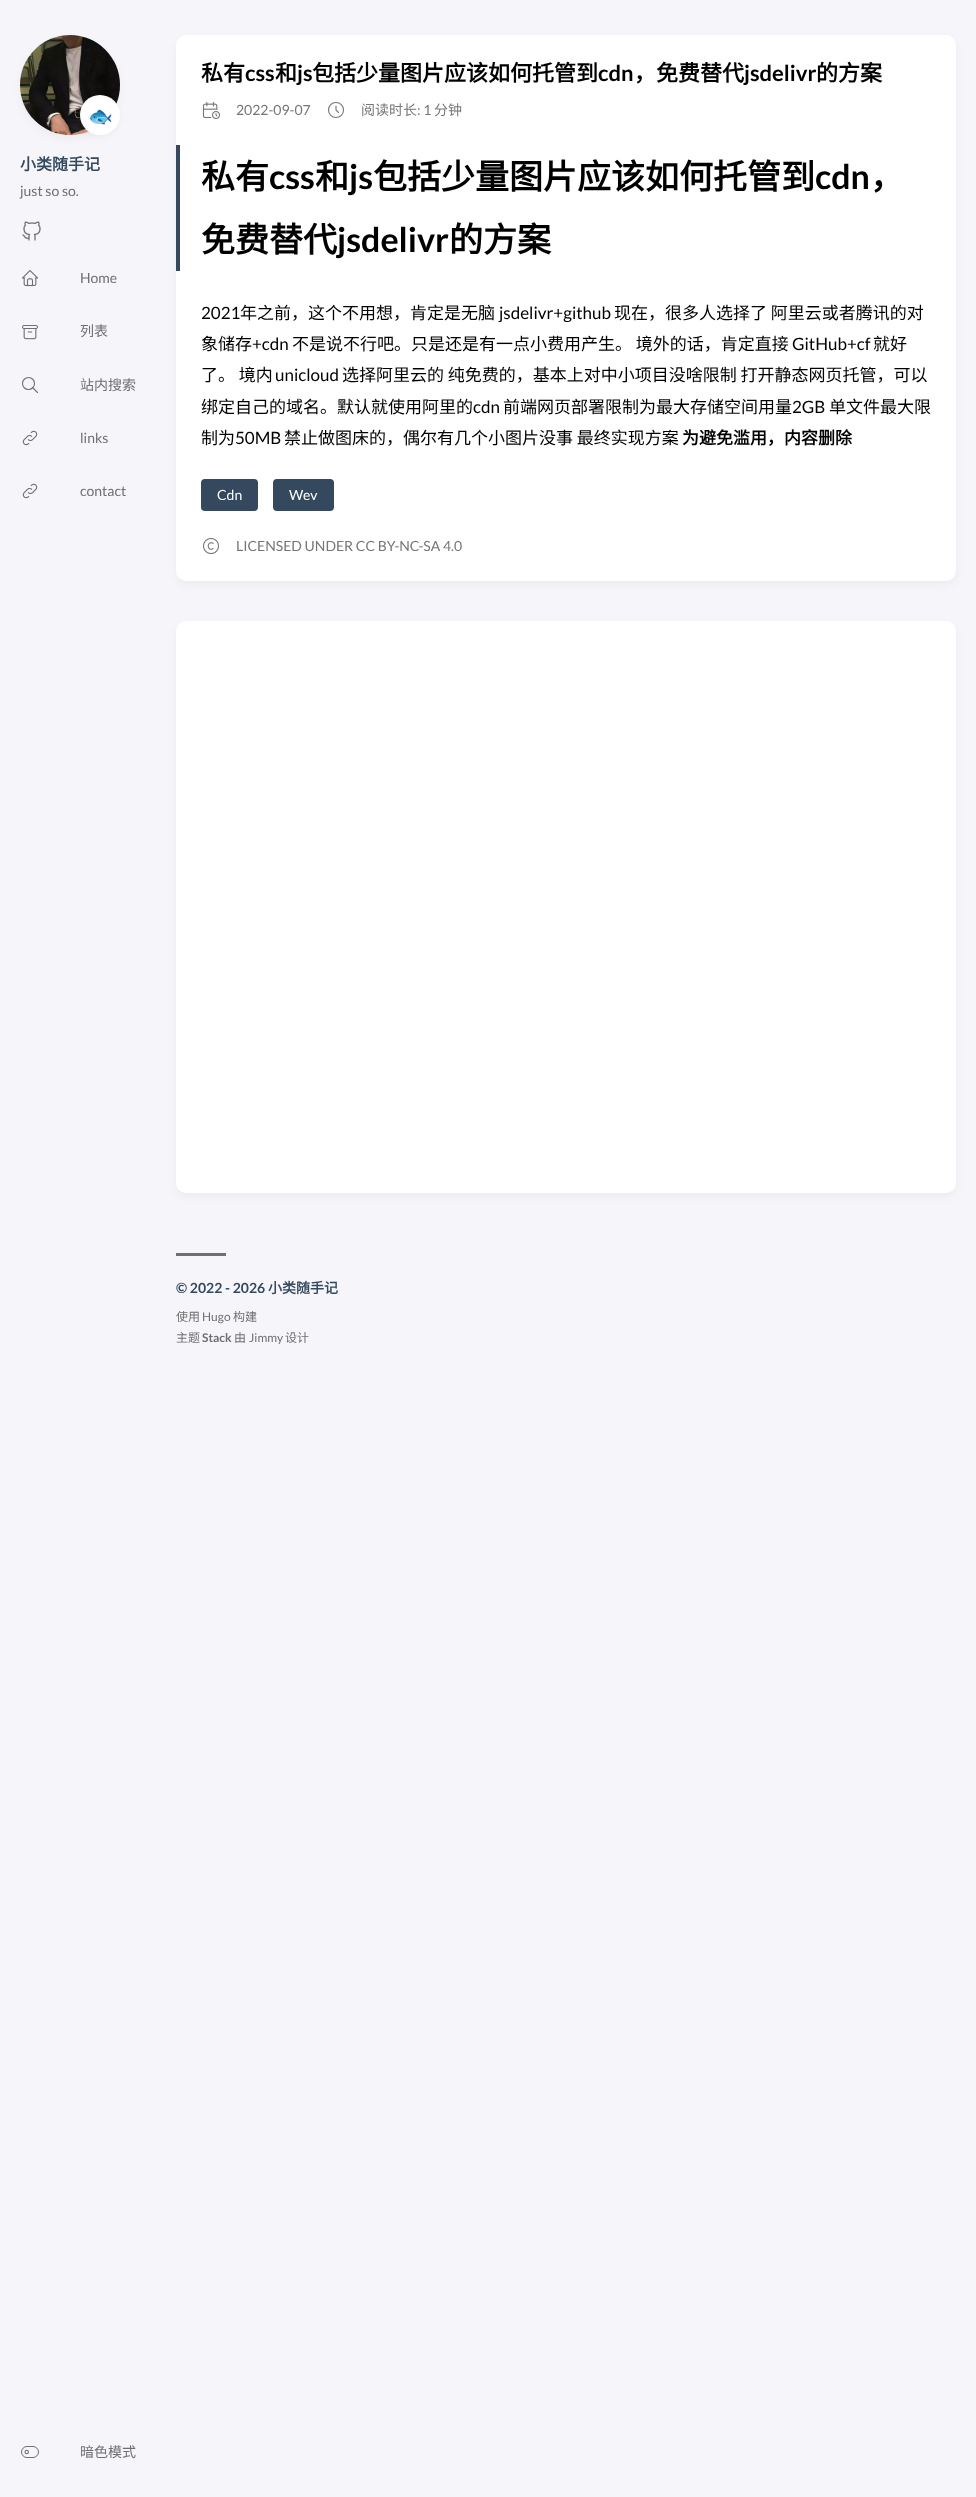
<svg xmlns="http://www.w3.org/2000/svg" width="976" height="2497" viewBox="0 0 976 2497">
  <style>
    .t1 { font: 20px Noto Color Emoji; fill: #000; }
    .t2 { font: bold 16px Noto Sans CJK SC; fill: #34495e; }
    .t3 { font: 14px Lato; fill: #707070; }
    .t4 { font: 14px Noto Sans CJK SC; fill: #707070; }
    .t5 { font: bold 22px Noto Sans CJK SC; fill: #000; }
    .t6 { font: bold 22px Lato; fill: #000; }
    .t7 { font: 14px Lato; fill: #767676; }
    .t8 { font: 14px Noto Sans CJK SC; fill: #767676; }
    .t9 { font: bold 34px Noto Sans CJK SC; fill: #000; }
    .t10 { font: bold 34px Lato; fill: #000; }
    .t11 { font: 17px Lato; fill: #000; }
    .t12 { font: 17px Noto Sans CJK SC; fill: #000; }
    .t13 { font: bold 17px Noto Sans CJK SC; fill: #000; }
    .t14 { font: 14px Lato; fill: #fff; }
    .t15 { font: bold 14px Lato; fill: #34495e; }
    .t16 { font: bold 14px Noto Sans CJK SC; fill: #34495e; }
    .t17 { font: 12px Noto Sans CJK SC; fill: #707070; }
    .t18 { font: 12px Lato; fill: #707070; }
    .t19 { font: bold 12px Lato; fill: #707070; }
  </style>
  <rect width="100%" height="100%" fill="#f5f5fa"/>
  <rect x="20" y="39" width="100" height="100" rx="50" fill="#0000000a" filter="blur(4px)"/>
  <image x="20" y="35" width="100" height="100" href="images/1.png"/>
  <rect x="80" y="97" width="40" height="40" rx="20" fill="#0000000a" filter="blur(3px)"/>
  <circle cx="100" cy="115" r="20" fill="#fff"/>
  <text x="88" y="123" class="t1">🐟</text>
  <text x="20" y="170" class="t2">小类随手记</text>
  <text x="20" y="196" class="t3">just so so.</text>
  <image x="22" y="221" width="19" height="20" href="images/2.png"/>
  <image x="22" y="270" width="16" height="17" href="images/3.png"/>
  <text x="80" y="283" class="t3">Home</text>
  <image x="22" y="325" width="16" height="15" href="images/4.png"/>
  <text x="80" y="336" class="t4">列表</text>
  <circle cx="28.5" cy="383.5" r="6" fill="none" stroke="#707070" stroke-width="1.1"/>
  <path d="M37.5 392.5L32.5 387.5" fill="none" stroke="#707070" stroke-width="1.1" stroke-linecap="round" stroke-linejoin="round"/>
  <text x="80" y="390" class="t4">站内搜索</text>
  <image x="22" y="430" width="16" height="16" href="images/5.png"/>
  <text x="80" y="443" class="t3">links</text>
  <image x="22" y="483" width="16" height="16" href="images/5.png"/>
  <text x="80" y="496" class="t3">contact</text>
  <circle cx="26.7" cy="2452" r="1.7" fill="none" stroke="#707070" stroke-width="1.1"/>
  <rect x="21.5" y="2446.5" width="17" height="11" rx="5.5" fill="none" stroke="#707070"/>
  <text x="80" y="2457" class="t4">暗色模式</text>
  <rect x="176" y="39" width="780" height="546" rx="10" fill="#0000000a" filter="blur(4px)"/>
  <rect x="176" y="35" width="780" height="546" rx="10" fill="#fff"/>
  <text x="201" y="81" class="t5">私有</text>
  <text x="245" y="81" class="t6">css</text>
  <text x="275" y="81" class="t5">和</text>
  <text x="297" y="81" class="t6">js</text>
  <text x="312" y="81" class="t5">包括少量图片应该如何托管到</text>
  <text x="598" y="81" class="t6">cdn</text>
  <text x="634" y="81" class="t5">，免费替代</text>
  <text x="744" y="81" class="t6">jsdelivr</text>
  <text x="816" y="81" class="t5">的方案</text>
  <image x="202" y="102" width="18" height="17" href="images/6.png"/>
  <text x="236" y="115" class="t7">2022-09-07</text>
  <circle cx="336" cy="110" r="7.5" fill="none" stroke="#767676" stroke-width="1.1"/>
  <path d="M336 106V110L338.5 112.5" fill="none" stroke="#767676" stroke-width="1.1" stroke-linecap="round" stroke-linejoin="round"/>
  <text x="361" y="115" class="t8">阅读时长</text>
  <text x="417" y="115" class="t7">: 1</text>
  <text x="434" y="115" class="t8">分钟</text>
  <rect x="176" y="145" width="4" height="126" fill="#34495e"/>
  <text x="201" y="189" class="t9">私有</text>
  <text x="269" y="189" class="t10">css</text>
  <text x="315" y="189" class="t9">和</text>
  <text x="349" y="189" class="t10">js</text>
  <text x="373" y="189" class="t9">包括少量图片应该如何托管到</text>
  <text x="815" y="189" class="t10">cdn</text>
  <text x="870" y="189" class="t9">，</text>
  <text x="201" y="252" class="t9">免费替代</text>
  <text x="337" y="252" class="t10">jsdelivr</text>
  <text x="449" y="252" class="t9">的方案</text>
  <text x="201" y="319" class="t11">2021</text>
  <text x="240" y="319" class="t12">年之前，这个不用想，肯定是无脑</text>
  <text x="499" y="319" class="t11">jsdelivr+github</text>
  <text x="614" y="319" class="t12">现在，很多人选择了 阿里云或者腾讯的对</text>
  <text x="201" y="350" class="t12">象储存</text>
  <text x="252" y="350" class="t11">+cdn</text>
  <text x="292" y="350" class="t12">不是说不行吧。只是还是有一点小费用产生。 境外的话，肯定直接</text>
  <text x="792" y="350" class="t11">GitHub+cf</text>
  <text x="873" y="350" class="t12">就好</text>
  <text x="201" y="381" class="t12">了。 境内</text>
  <text x="275" y="381" class="t11">unicloud</text>
  <text x="342" y="381" class="t12">选择阿里云的 纯免费的，基本上对中小项目没啥限制 打开静态网页托管，可以</text>
  <text x="201" y="413" class="t12">绑定自己的域名。默认就使用阿里的</text>
  <text x="473" y="413" class="t11">cdn</text>
  <text x="503" y="413" class="t12">前端网页部署限制为最大存储空间用量</text>
  <text x="792" y="413" class="t11">2GB</text>
  <text x="829" y="413" class="t12">单文件最大限</text>
  <text x="201" y="444" class="t12">制为</text>
  <text x="235" y="444" class="t11">50MB</text>
  <text x="284" y="444" class="t12">禁止做图床的，偶尔有几个小图片没事 最终实现方案</text>
  <text x="682" y="444" class="t13">为避免滥用，内容删除</text>
  <rect x="201" y="479" width="57" height="32" rx="4" fill="#34495e"/>
  <text x="217" y="500" class="t14">Cdn</text>
  <rect x="273" y="479" width="61" height="32" rx="4" fill="#34495e"/>
  <text x="289" y="500" class="t14">Wev</text>
  <image x="203" y="538" width="16" height="16" href="images/7.png"/>
  <text x="236" y="551" class="t7">LICENSED UNDER CC BY-NC-SA 4.0</text>
  <rect x="176" y="625" width="780" height="572" rx="10" fill="#0000000a" filter="blur(4px)"/>
  <rect x="176" y="621" width="780" height="572" rx="10" fill="#fff"/>
  <rect x="176" y="1253" width="50" height="3" fill="#707070"/>
  <text x="176" y="1293" class="t15">© 2022 - 2026</text>
  <text x="268" y="1293" class="t16">小类随手记</text>
  <text x="176" y="1321" class="t17">使用</text>
  <text x="202" y="1321" class="t18">Hugo</text>
  <text x="233" y="1321" class="t17">构建</text>
  <text x="176" y="1342" class="t17">主题</text>
  <text x="202" y="1342" class="t19">Stack</text>
  <text x="234" y="1342" class="t17">由</text>
  <text x="249" y="1342" class="t18">Jimmy</text>
  <text x="285" y="1342" class="t17">设计</text>
</svg>
